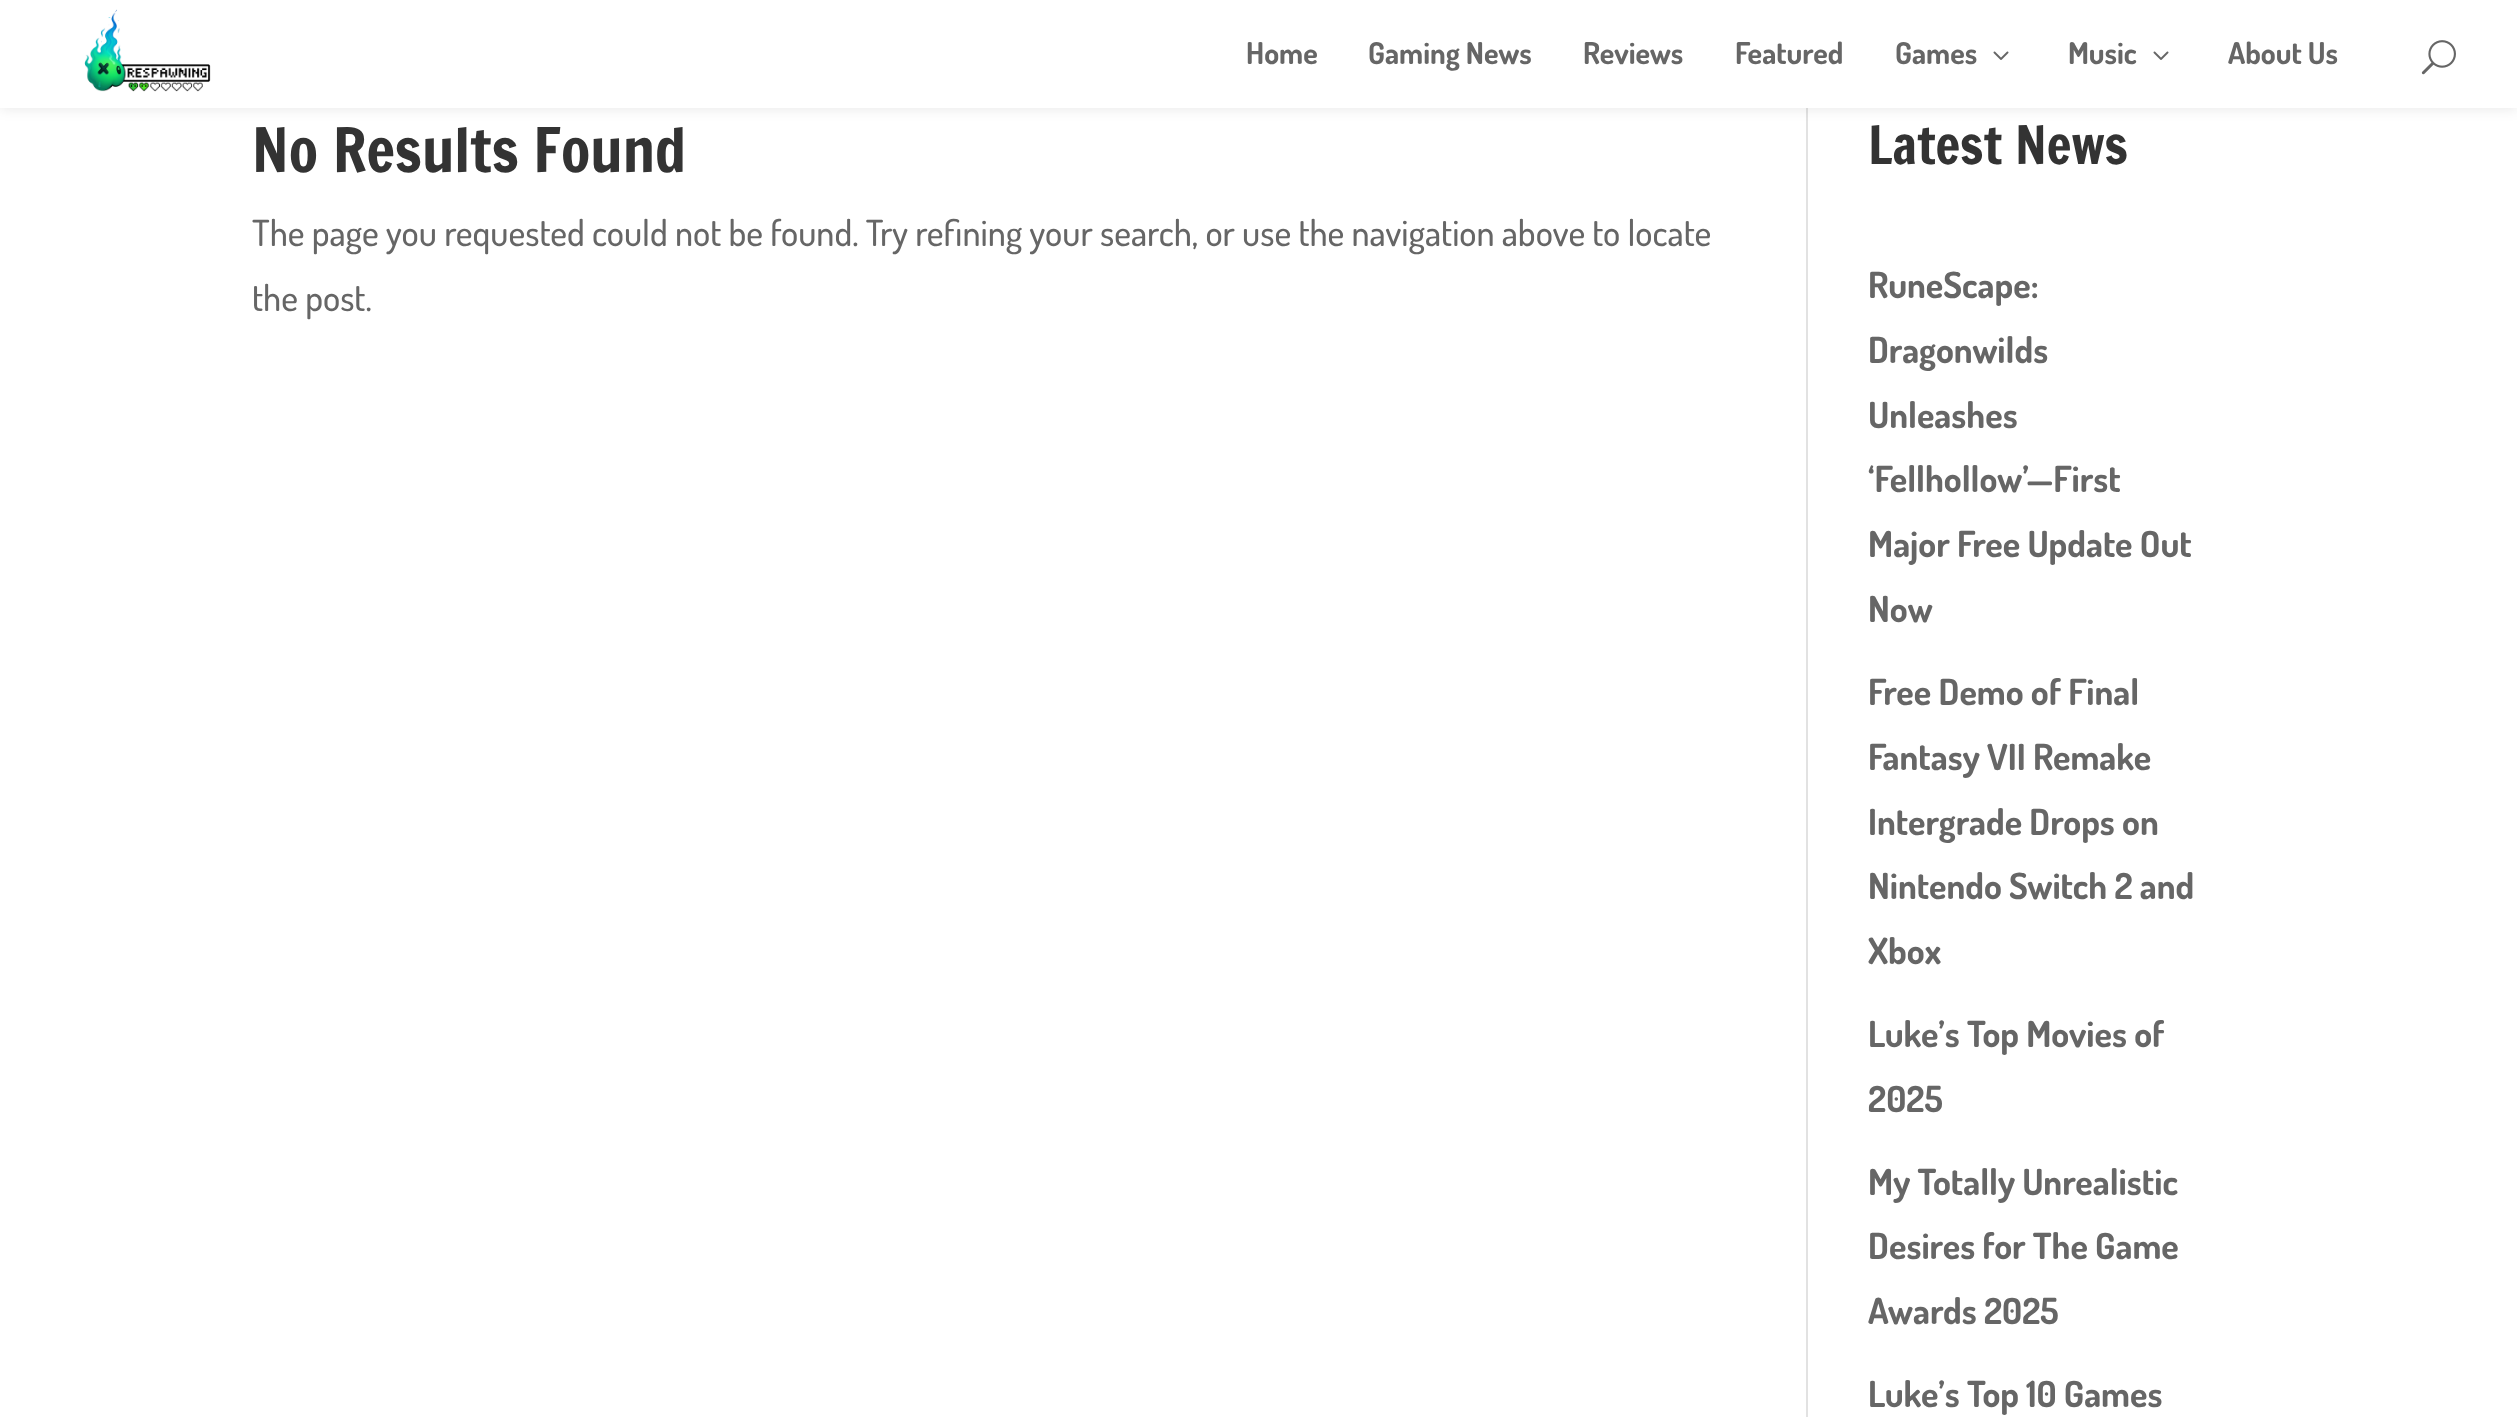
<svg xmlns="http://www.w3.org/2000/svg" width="2517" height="1417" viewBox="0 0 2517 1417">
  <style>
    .t1 { font: bold 30px Dosis; fill: #666; }
    .t2 { font: 60px Francois One; fill: #333; }
    .t3 { font: 500 36px Dosis; fill: #666; }
    .t4 { font: 52px Francois One; fill: #333; }
    .t5 { font: bold 36px Dosis; fill: #666; }
  </style>
  <rect width="100%" height="100%" fill="#fff"/>
  <rect x="1806" y="108" width="2" height="1309" fill="#e2e2e2"/>
  <rect x="0" y="0" width="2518" height="108" fill="#0000001a" filter="blur(7px)"/>
  <rect x="0" y="0" width="2517" height="108" fill="#fff"/>
  <image x="84" y="9" width="127" height="83" href="images/1.png"/>
  <text x="1246" y="64" class="t1">Home</text>
  <text x="1368" y="64" class="t1">Gaming News</text>
  <text x="1583" y="64" class="t1">Reviews</text>
  <text x="1735" y="64" class="t1">Featured</text>
  <text x="1895" y="64" class="t1">Games</text>
  <image x="1993" y="51" width="16" height="9" href="images/2.png"/>
  <text x="2068" y="64" class="t1">Music</text>
  <image x="2153" y="51" width="16" height="9" href="images/2.png"/>
  <text x="2228" y="64" class="t1">About Us</text>
  <image x="2421" y="40" width="35" height="35" href="images/3.png"/>
  <text x="252" y="172" class="t2">No Results Found</text>
  <text x="252" y="246" class="t3">The page you requested could not be found. Try refining your search, or use the navigation above to locate</text>
  <text x="252" y="311" class="t3">the post.</text>
  <text x="1868" y="164" class="t4">Latest News</text>
  <text x="1868" y="298" class="t5">RuneScape:</text>
  <text x="1868" y="363" class="t5">Dragonwilds</text>
  <text x="1868" y="428" class="t5">Unleashes</text>
  <text x="1868" y="492" class="t5">‘Fellhollow’—First</text>
  <text x="1868" y="557" class="t5">Major Free Update Out</text>
  <text x="1868" y="622" class="t5">Now</text>
  <text x="1868" y="705" class="t5">Free Demo of Final</text>
  <text x="1868" y="770" class="t5">Fantasy VII Remake</text>
  <text x="1868" y="835" class="t5">Intergrade Drops on</text>
  <text x="1868" y="899" class="t5">Nintendo Switch 2 and</text>
  <text x="1868" y="964" class="t5">Xbox</text>
  <text x="1868" y="1047" class="t5">Luke’s Top Movies of</text>
  <text x="1868" y="1112" class="t5">2025</text>
  <text x="1868" y="1195" class="t5">My Totally Unrealistic</text>
  <text x="1868" y="1259" class="t5">Desires for The Game</text>
  <text x="1868" y="1324" class="t5">Awards 2025</text>
  <text x="1868" y="1407" class="t5">Luke’s Top 10 Games</text>
</svg>
